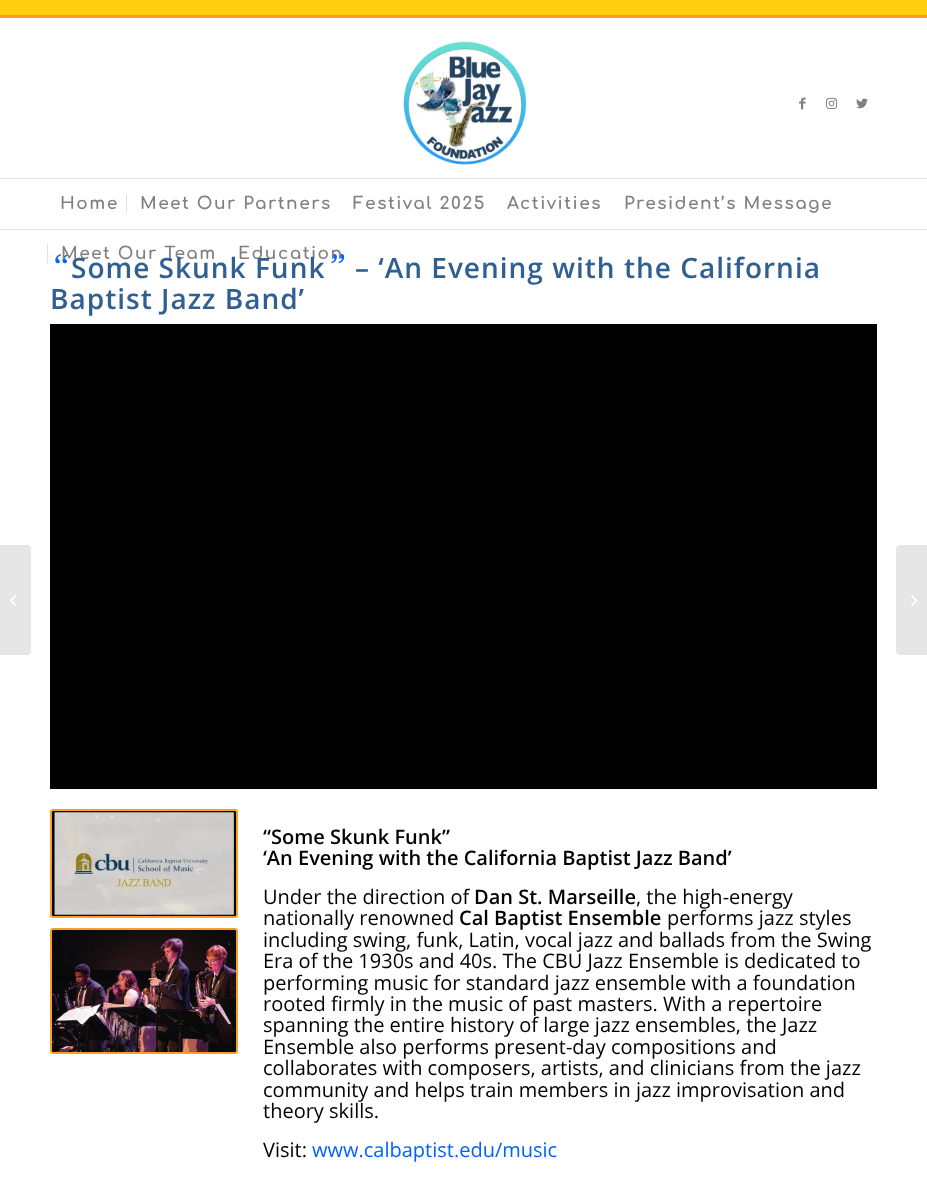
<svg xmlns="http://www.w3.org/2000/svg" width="927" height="1200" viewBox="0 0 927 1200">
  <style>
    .t1 { font: bold 17px Comfortaa; letter-spacing: 1.5px; fill: #808080; }
    .t2 { font: italic 36px Liberation Serif; letter-spacing: 1px; fill: #0062ff; }
    .t3 { font: 600 28px Open Sans; letter-spacing: 1px; fill: #306091; }
    .t4 { font: 600 20px Open Sans; fill: #000; }
    .t5 { font: 20px Open Sans; fill: #000; }
    .t6 { font: 20px Open Sans; fill: #0062ff; }
  </style>
  <rect width="100%" height="100%" fill="#fff"/>
  <rect x="0" y="0" width="927" height="15" fill="#ffd00e"/>
  <rect x="0" y="15" width="927" height="3" fill="#fc9d28"/>
  <rect x="0" y="229" width="927" height="1" fill="#e1e1e1"/>
  <image x="403" y="41" width="124" height="124" href="images/1.png"/>
  <image x="799" y="97" width="7" height="13" href="images/2.png"/>
  <image x="826" y="97" width="12" height="12" href="images/3.png"/>
  <image x="856" y="98" width="12" height="11" href="images/4.png"/>
  <rect x="0" y="178" width="927" height="1" fill="#e1e1e1"/>
  <text x="60" y="209" class="t1">Home</text>
  <text x="140" y="209" class="t1">Meet Our Partners</text>
  <rect x="126" y="194" width="1" height="19" fill="#e1e1e1"/>
  <text x="353" y="209" class="t1">Festival 2025</text>
  <text x="507" y="209" class="t1">Activities</text>
  <text x="624" y="209" class="t1">President’s Message</text>
  <text x="50" y="278" class="t2">“</text>
  <text x="61" y="259" class="t1">Meet Our Team</text>
  <rect x="47" y="244" width="1" height="19" fill="#e1e1e1"/>
  <text x="326" y="278" class="t2">”</text>
  <text x="238" y="259" class="t1">Education</text>
  <path d="M0 545H27C29 545 31 547 31 549V651C31 653 29 655 27 655H0Z" fill="#e6e6e6"/>
  <image x="10" y="595" width="7" height="11" href="images/5.png"/>
  <text x="71" y="278" class="t3">Some Skunk Funk</text>
  <text x="355" y="278" class="t3">– ‘An Evening with the California</text>
  <text x="50" y="309" class="t3">Baptist Jazz Band’</text>
  <rect x="50" y="324" width="827" height="465" fill="#000"/>
  <rect x="51" y="810" width="186" height="107" rx="2" fill="none" stroke="#fc9d28" stroke-width="2"/>
  <image x="52" y="811" width="184" height="105" href="images/6.png"/>
  <rect x="51" y="929" width="186" height="124" rx="2" fill="none" stroke="#fc9d28" stroke-width="2"/>
  <image x="52" y="930" width="184" height="122" href="images/7.png"/>
  <text x="263" y="844" class="t4">“Some Skunk Funk”</text>
  <text x="263" y="865" class="t4">‘An Evening with the California Baptist Jazz Band’</text>
  <text x="263" y="904" class="t5">Under the direction of</text>
  <text x="474" y="904" class="t4">Dan St. Marseille</text>
  <text x="636" y="904" class="t5">, the high-energy</text>
  <text x="263" y="925" class="t5">nationally renowned</text>
  <text x="459" y="925" class="t4">Cal Baptist Ensemble</text>
  <text x="667" y="925" class="t5">performs jazz styles</text>
  <text x="263" y="947" class="t5">including swing, funk, Latin, vocal jazz and ballads from the Swing</text>
  <text x="263" y="968" class="t5">Era of the 1930s and 40s. The CBU Jazz Ensemble is dedicated to</text>
  <text x="263" y="990" class="t5">performing music for standard jazz ensemble with a foundation</text>
  <text x="263" y="1011" class="t5">rooted firmly in the music of past masters. With a repertoire</text>
  <text x="263" y="1032" class="t5">spanning the entire history of large jazz ensembles, the Jazz</text>
  <text x="263" y="1054" class="t5">Ensemble also performs present-day compositions and</text>
  <text x="263" y="1075" class="t5">collaborates with composers, artists, and clinicians from the jazz</text>
  <text x="263" y="1097" class="t5">community and helps train members in jazz improvisation and</text>
  <text x="263" y="1118" class="t5">theory skills.</text>
  <text x="263" y="1157" class="t5">Visit:</text>
  <text x="312" y="1157" class="t6">www.calbaptist.edu/music</text>
  <path d="M900 545H927V655H900C898 655 896 653 896 651V549C896 547 898 545 900 545Z" fill="#e6e6e6"/>
  <image x="911" y="595" width="7" height="11" href="images/8.png"/>
</svg>
